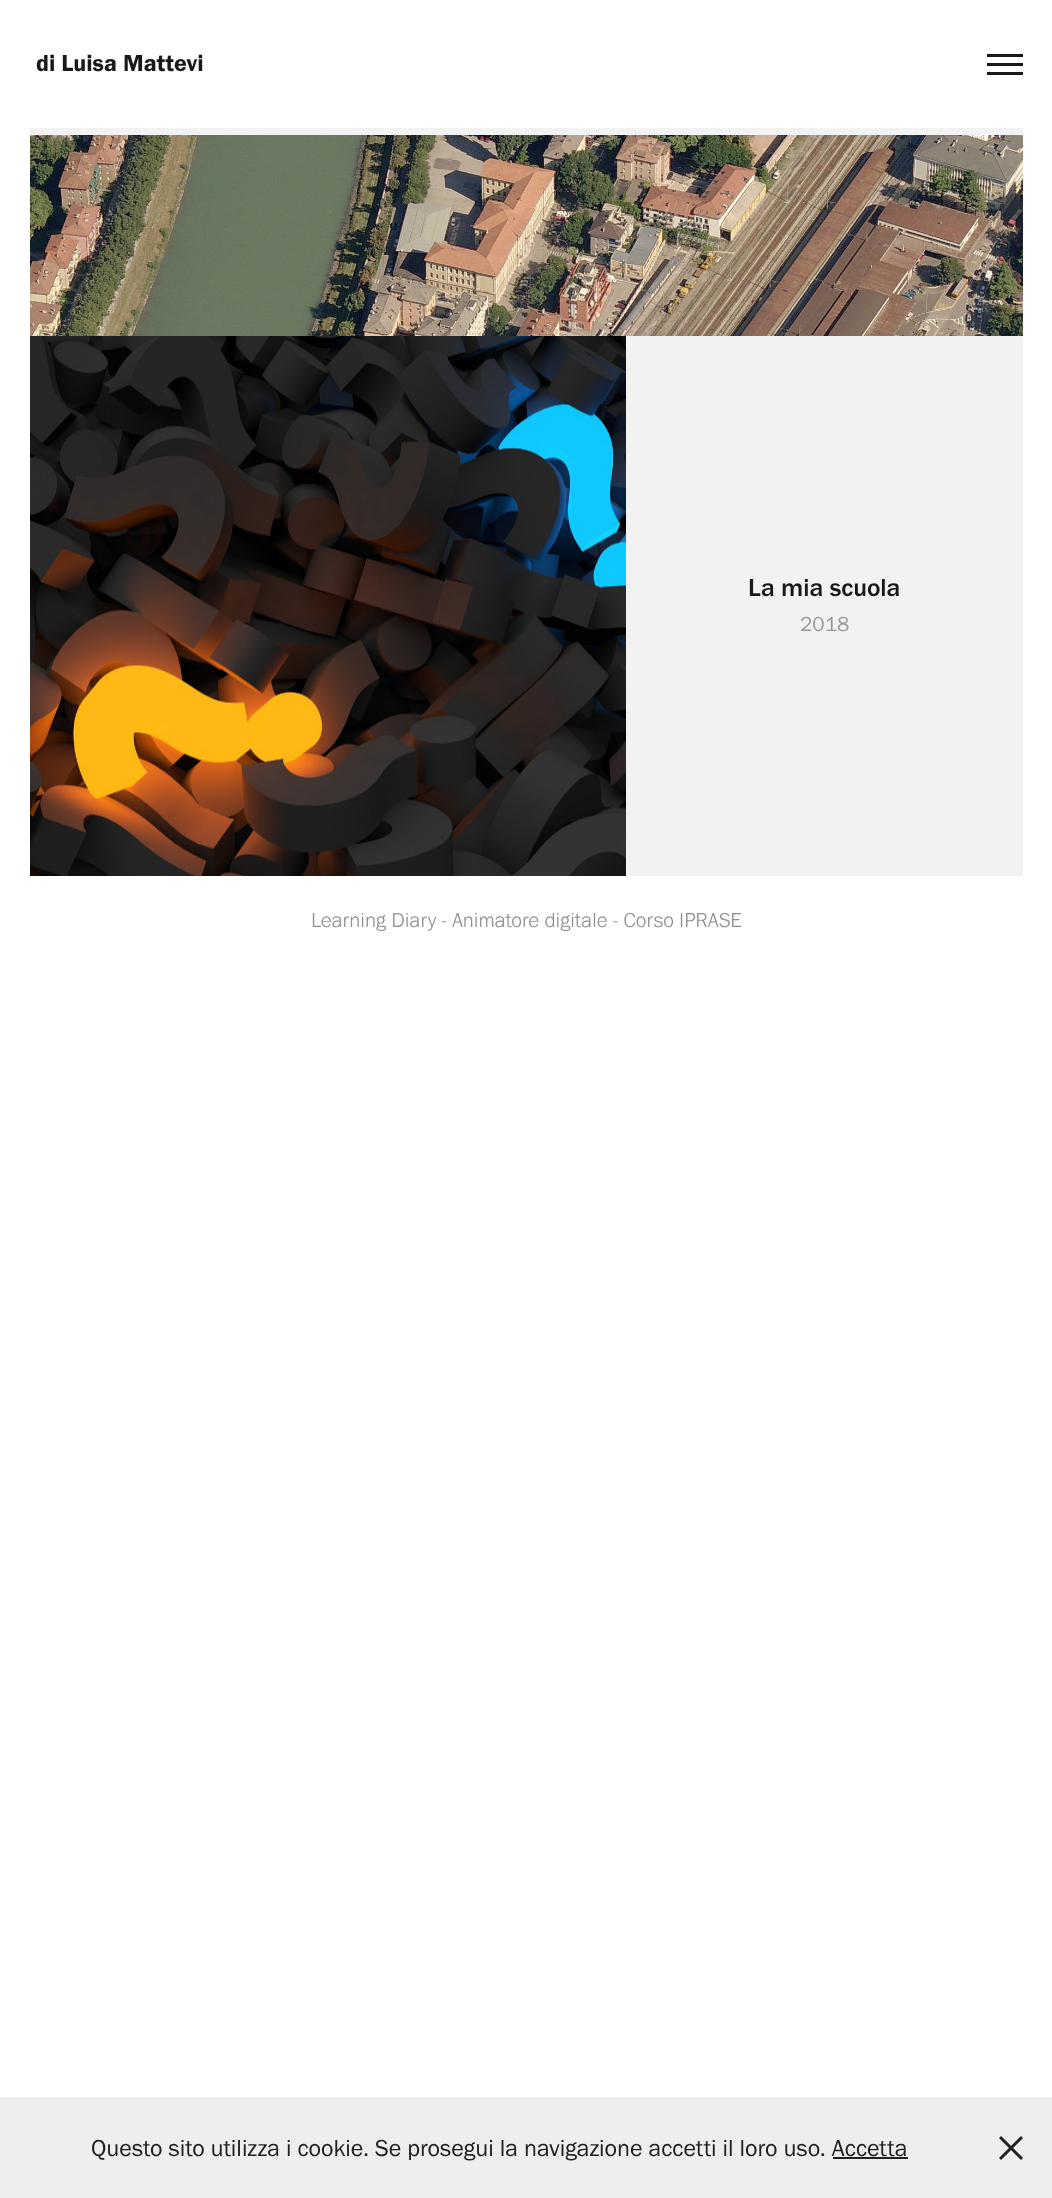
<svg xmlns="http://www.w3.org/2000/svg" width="1052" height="2198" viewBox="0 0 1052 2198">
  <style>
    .t1 { font: 600 24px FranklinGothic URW; fill: #191919; }
    .t2 { font: 500 25.5px FranklinGothic URW; fill: #191919; }
    .t3 { font: 21px FranklinGothic URW; fill: #999; }
    .t4 { font: 300 21px FranklinGothic URW; fill: #8e8e8e; }
    .t5 { font: 24px FranklinGothic URW; fill: #212121; }
  </style>
  <rect width="100%" height="100%" fill="#fff"/>
  <rect x="30" y="128" width="993" height="7" fill="#f2f2f2"/>
  <text x="36" y="71" class="t1">di Luisa Mattevi</text>
  <rect x="987" y="54" width="36" height="3" fill="#191919"/>
  <rect x="987" y="63" width="36" height="3" fill="#191919"/>
  <rect x="987" y="72" width="36" height="3" fill="#191919"/>
  <image x="30" y="135" width="993" height="201" href="images/1.png"/>
  <image x="30" y="336" width="596" height="540" href="images/2.png"/>
  <rect x="626" y="336" width="397" height="540" fill="#f2f2f2"/>
  <text x="748" y="596" class="t2">La mia scuola</text>
  <text x="800" y="631" class="t3">2018</text>
  <text x="311" y="927" class="t4">Learning Diary - Animatore digitale - Corso IPRASE</text>
  <rect x="0" y="2097" width="1052" height="101" fill="#edeeee"/>
  <text x="91" y="2156" class="t5">Questo sito utilizza i cookie. Se prosegui la navigazione accetti il loro uso. Accetta</text>
  <rect x="833" y="2157" width="75" height="2" fill="#212121"/>
  <image x="999" y="2136" width="24" height="24" href="images/3.png"/>
</svg>
